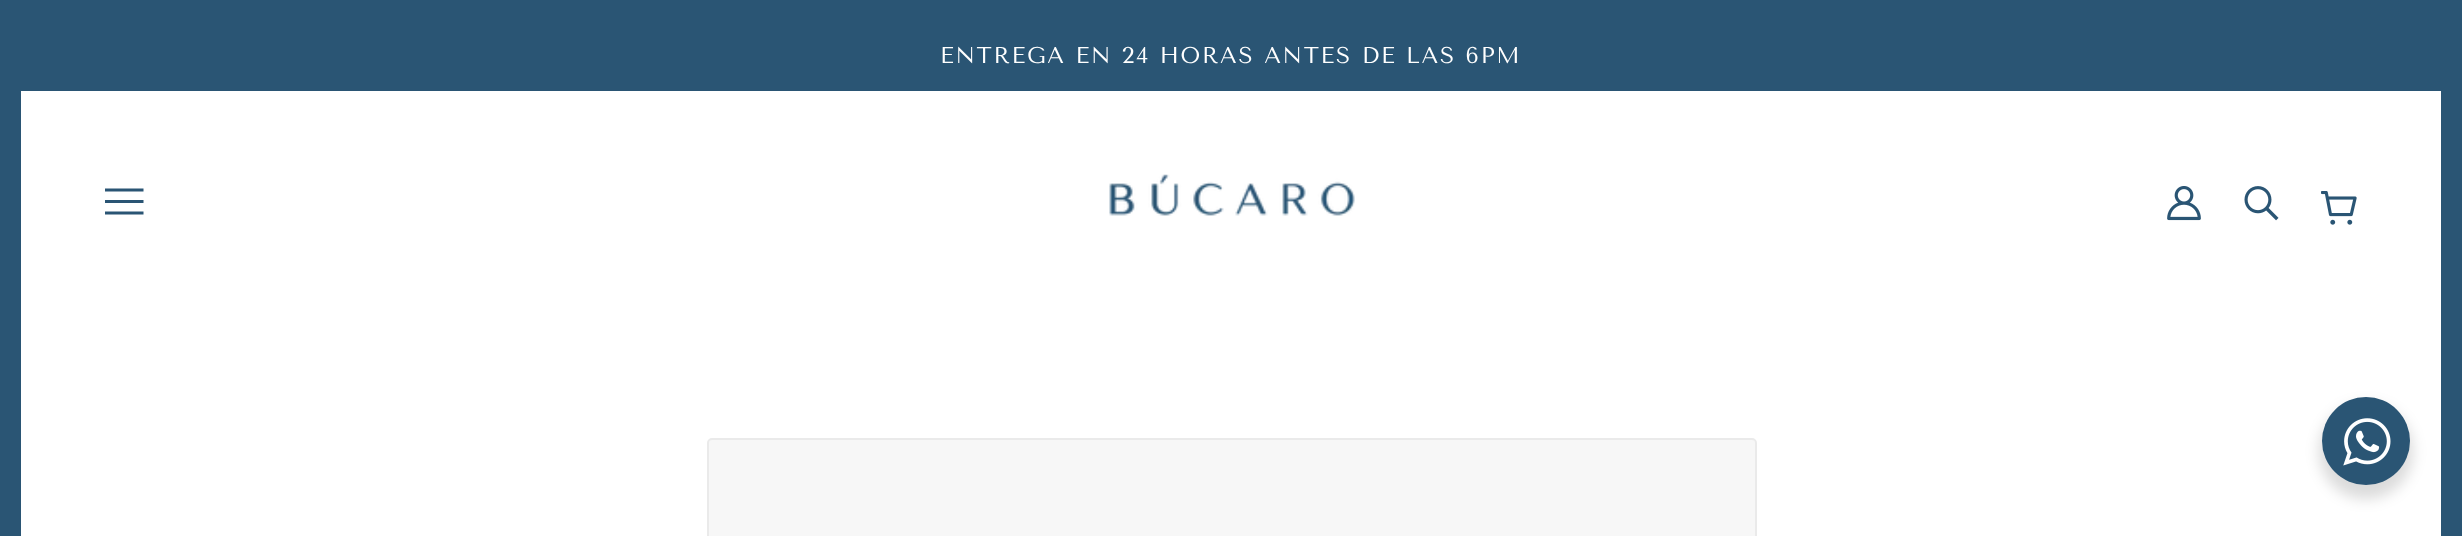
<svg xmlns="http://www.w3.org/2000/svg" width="2462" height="536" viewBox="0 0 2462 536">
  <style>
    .t1 { font: 22.75px Tenor Sans; letter-spacing: 1.75px; fill: #fff; }
  </style>
  <rect width="100%" height="100%" fill="#fff"/>
  <rect x="10.5" y="10.5" width="2441" height="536" fill="none" stroke="#2a5574" stroke-width="21"/>
  <rect x="21" y="21" width="2420" height="70" fill="#2a5574"/>
  <text x="940" y="63" class="t1">ENTREGA EN 24 HORAS ANTES DE LAS 6PM</text>
  <path d="M105 191.5V188.5H143.5V191.5ZM105 203V200H143.5V203ZM105 214.5V211.5H143.5V214.5Z" fill="#2a5574"/>
  <image x="1109" y="174" width="246" height="42" href="images/1.png"/>
  <image x="2167" y="186" width="34" height="35" href="images/2.png"/>
  <image x="2244" y="186" width="35" height="35" href="images/3.png"/>
  <image x="2321" y="191" width="36" height="34" href="images/4.png"/>
  <rect x="708" y="439" width="1048" height="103" rx="4" fill="#f7f7f7" stroke="#eaeaea" stroke-width="2"/>
  <rect x="2319" y="404" width="94" height="95" rx="47" fill="#00000024" filter="blur(7px)"/>
  <circle cx="2366" cy="441" r="44" fill="#2a5574"/>
  <image x="2343" y="418" width="48" height="48" href="images/5.png"/>
</svg>
